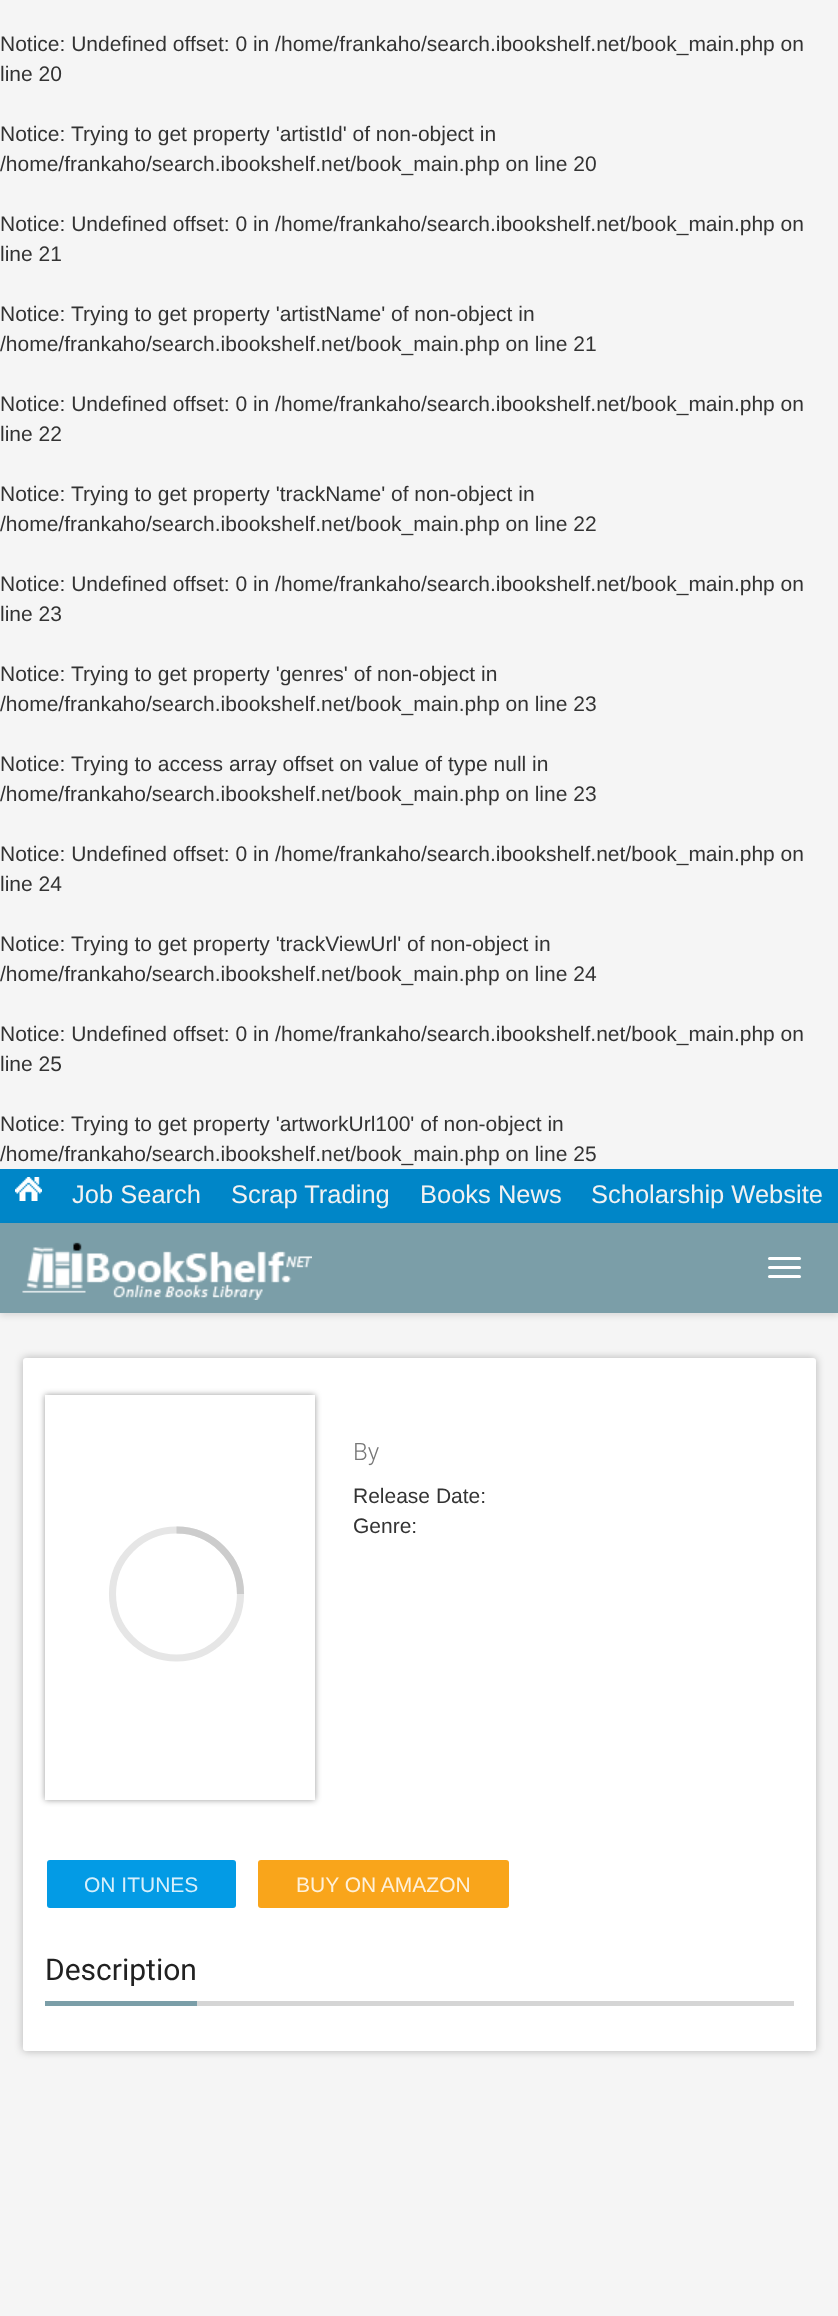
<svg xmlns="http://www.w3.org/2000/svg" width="838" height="2316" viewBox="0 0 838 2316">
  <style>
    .t1 { font: 21px Liberation Sans; fill: #333; }
    .t2 { font: 25.5px Liberation Sans; fill: #f2f2f2; }
    .t3 { font: 300 24px Roboto; fill: #777; }
    .t4 { font: 21px Liberation Sans; fill: #d7effb; }
    .t5 { font: 21px Liberation Sans; fill: #fef1db; }
    .t6 { font: 30px Roboto; fill: #212121; }
  </style>
  <defs>
    <clipPath id="clip1"><path d="M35 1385H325V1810H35ZM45 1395H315V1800H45Z" clip-rule="evenodd"/></clipPath>
  </defs>
  <rect width="100%" height="100%" fill="#f5f5f5"/>
  <text x="0" y="51" class="t1">Notice: Undefined offset: 0 in /home/frankaho/search.ibookshelf.net/book_main.php on</text>
  <text x="0" y="81" class="t1">line 20</text>
  <text x="0" y="141" class="t1">Notice:</text>
  <text x="71" y="141" class="t1">Trying to get property 'artistId' of non-object in</text>
  <text x="0" y="171" class="t1">/home/frankaho/search.ibookshelf.net/book_main.php on line 20</text>
  <text x="0" y="231" class="t1">Notice: Undefined offset: 0 in /home/frankaho/search.ibookshelf.net/book_main.php on</text>
  <text x="0" y="261" class="t1">line 21</text>
  <text x="0" y="321" class="t1">Notice:</text>
  <text x="71" y="321" class="t1">Trying to get property 'artistName' of non-object in</text>
  <text x="0" y="351" class="t1">/home/frankaho/search.ibookshelf.net/book_main.php on line 21</text>
  <text x="0" y="411" class="t1">Notice: Undefined offset: 0 in /home/frankaho/search.ibookshelf.net/book_main.php on</text>
  <text x="0" y="441" class="t1">line 22</text>
  <text x="0" y="501" class="t1">Notice:</text>
  <text x="71" y="501" class="t1">Trying to get property 'trackName' of non-object in</text>
  <text x="0" y="531" class="t1">/home/frankaho/search.ibookshelf.net/book_main.php on line 22</text>
  <text x="0" y="591" class="t1">Notice: Undefined offset: 0 in /home/frankaho/search.ibookshelf.net/book_main.php on</text>
  <text x="0" y="621" class="t1">line 23</text>
  <text x="0" y="681" class="t1">Notice:</text>
  <text x="71" y="681" class="t1">Trying to get property 'genres' of non-object in</text>
  <text x="0" y="711" class="t1">/home/frankaho/search.ibookshelf.net/book_main.php on line 23</text>
  <text x="0" y="771" class="t1">Notice:</text>
  <text x="71" y="771" class="t1">Trying to access array offset on value of type null in</text>
  <text x="0" y="801" class="t1">/home/frankaho/search.ibookshelf.net/book_main.php on line 23</text>
  <text x="0" y="861" class="t1">Notice: Undefined offset: 0 in /home/frankaho/search.ibookshelf.net/book_main.php on</text>
  <text x="0" y="891" class="t1">line 24</text>
  <text x="0" y="951" class="t1">Notice:</text>
  <text x="71" y="951" class="t1">Trying to get property 'trackViewUrl' of non-object in</text>
  <text x="0" y="981" class="t1">/home/frankaho/search.ibookshelf.net/book_main.php on line 24</text>
  <text x="0" y="1041" class="t1">Notice: Undefined offset: 0 in /home/frankaho/search.ibookshelf.net/book_main.php on</text>
  <text x="0" y="1071" class="t1">line 25</text>
  <text x="0" y="1131" class="t1">Notice:</text>
  <text x="71" y="1131" class="t1">Trying to get property 'artworkUrl100' of non-object in</text>
  <text x="0" y="1161" class="t1">/home/frankaho/search.ibookshelf.net/book_main.php on line 25</text>
  <rect x="0" y="1169" width="838" height="54" fill="#0086c8"/>
  <image x="15" y="1177" width="27" height="24" href="images/1.png"/>
  <text x="72" y="1203" class="t2">Job Search</text>
  <text x="231" y="1203" class="t2">Scrap Trading</text>
  <text x="420" y="1203" class="t2">Books News</text>
  <text x="591" y="1203" class="t2">Scholarship Website</text>
  <rect x="0" y="1226" width="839" height="90" fill="#0000001a" filter="blur(3px)"/>
  <rect x="0" y="1223" width="838" height="90" fill="#7b9ea8"/>
  <image x="22" y="1242" width="290" height="58" href="images/2.png"/>
  <rect x="768" y="1257" width="33" height="3" rx="1.5" fill="#fff"/>
  <rect x="768" y="1266" width="33" height="3" rx="1.5" fill="#fff"/>
  <rect x="768" y="1275" width="33" height="3" rx="1.5" fill="#fff"/>
  <rect x="23" y="1358" width="793" height="693" rx="3" fill="#00000045" filter="blur(4.5px)"/>
  <rect x="23" y="1358" width="793" height="693" rx="3" fill="#fff"/>
  <g clip-path="url(#clip1)">
    <rect x="45" y="1395" width="270" height="405" fill="#00000066" filter="blur(3px)"/>
  </g>
  <circle cx="176.5" cy="1594" r="64" fill="none" stroke="#e6e6e6" stroke-width="7.1"/>
  <path d="M240.5 1594C240.5 1558.5 212 1530 176.5 1530" fill="none" stroke="#ccc" stroke-width="7.1"/>
  <text x="353" y="1460" class="t3">By</text>
  <text x="353" y="1503" class="t1">Release Date:</text>
  <text x="353" y="1533" class="t1">Genre:</text>
  <rect x="47" y="1860" width="189" height="48" rx="3" fill="#039be5"/>
  <text x="84" y="1892" class="t4">ON ITUNES</text>
  <rect x="258" y="1860" width="251" height="48" rx="3" fill="#f9a51b"/>
  <text x="296" y="1892" class="t5">BUY ON AMAZON</text>
  <rect x="197" y="2001" width="597" height="5" fill="#d5d5d5"/>
  <rect x="45" y="2001" width="152" height="5" fill="#7b9ea8"/>
  <text x="45" y="1980" class="t6">Description</text>
</svg>
